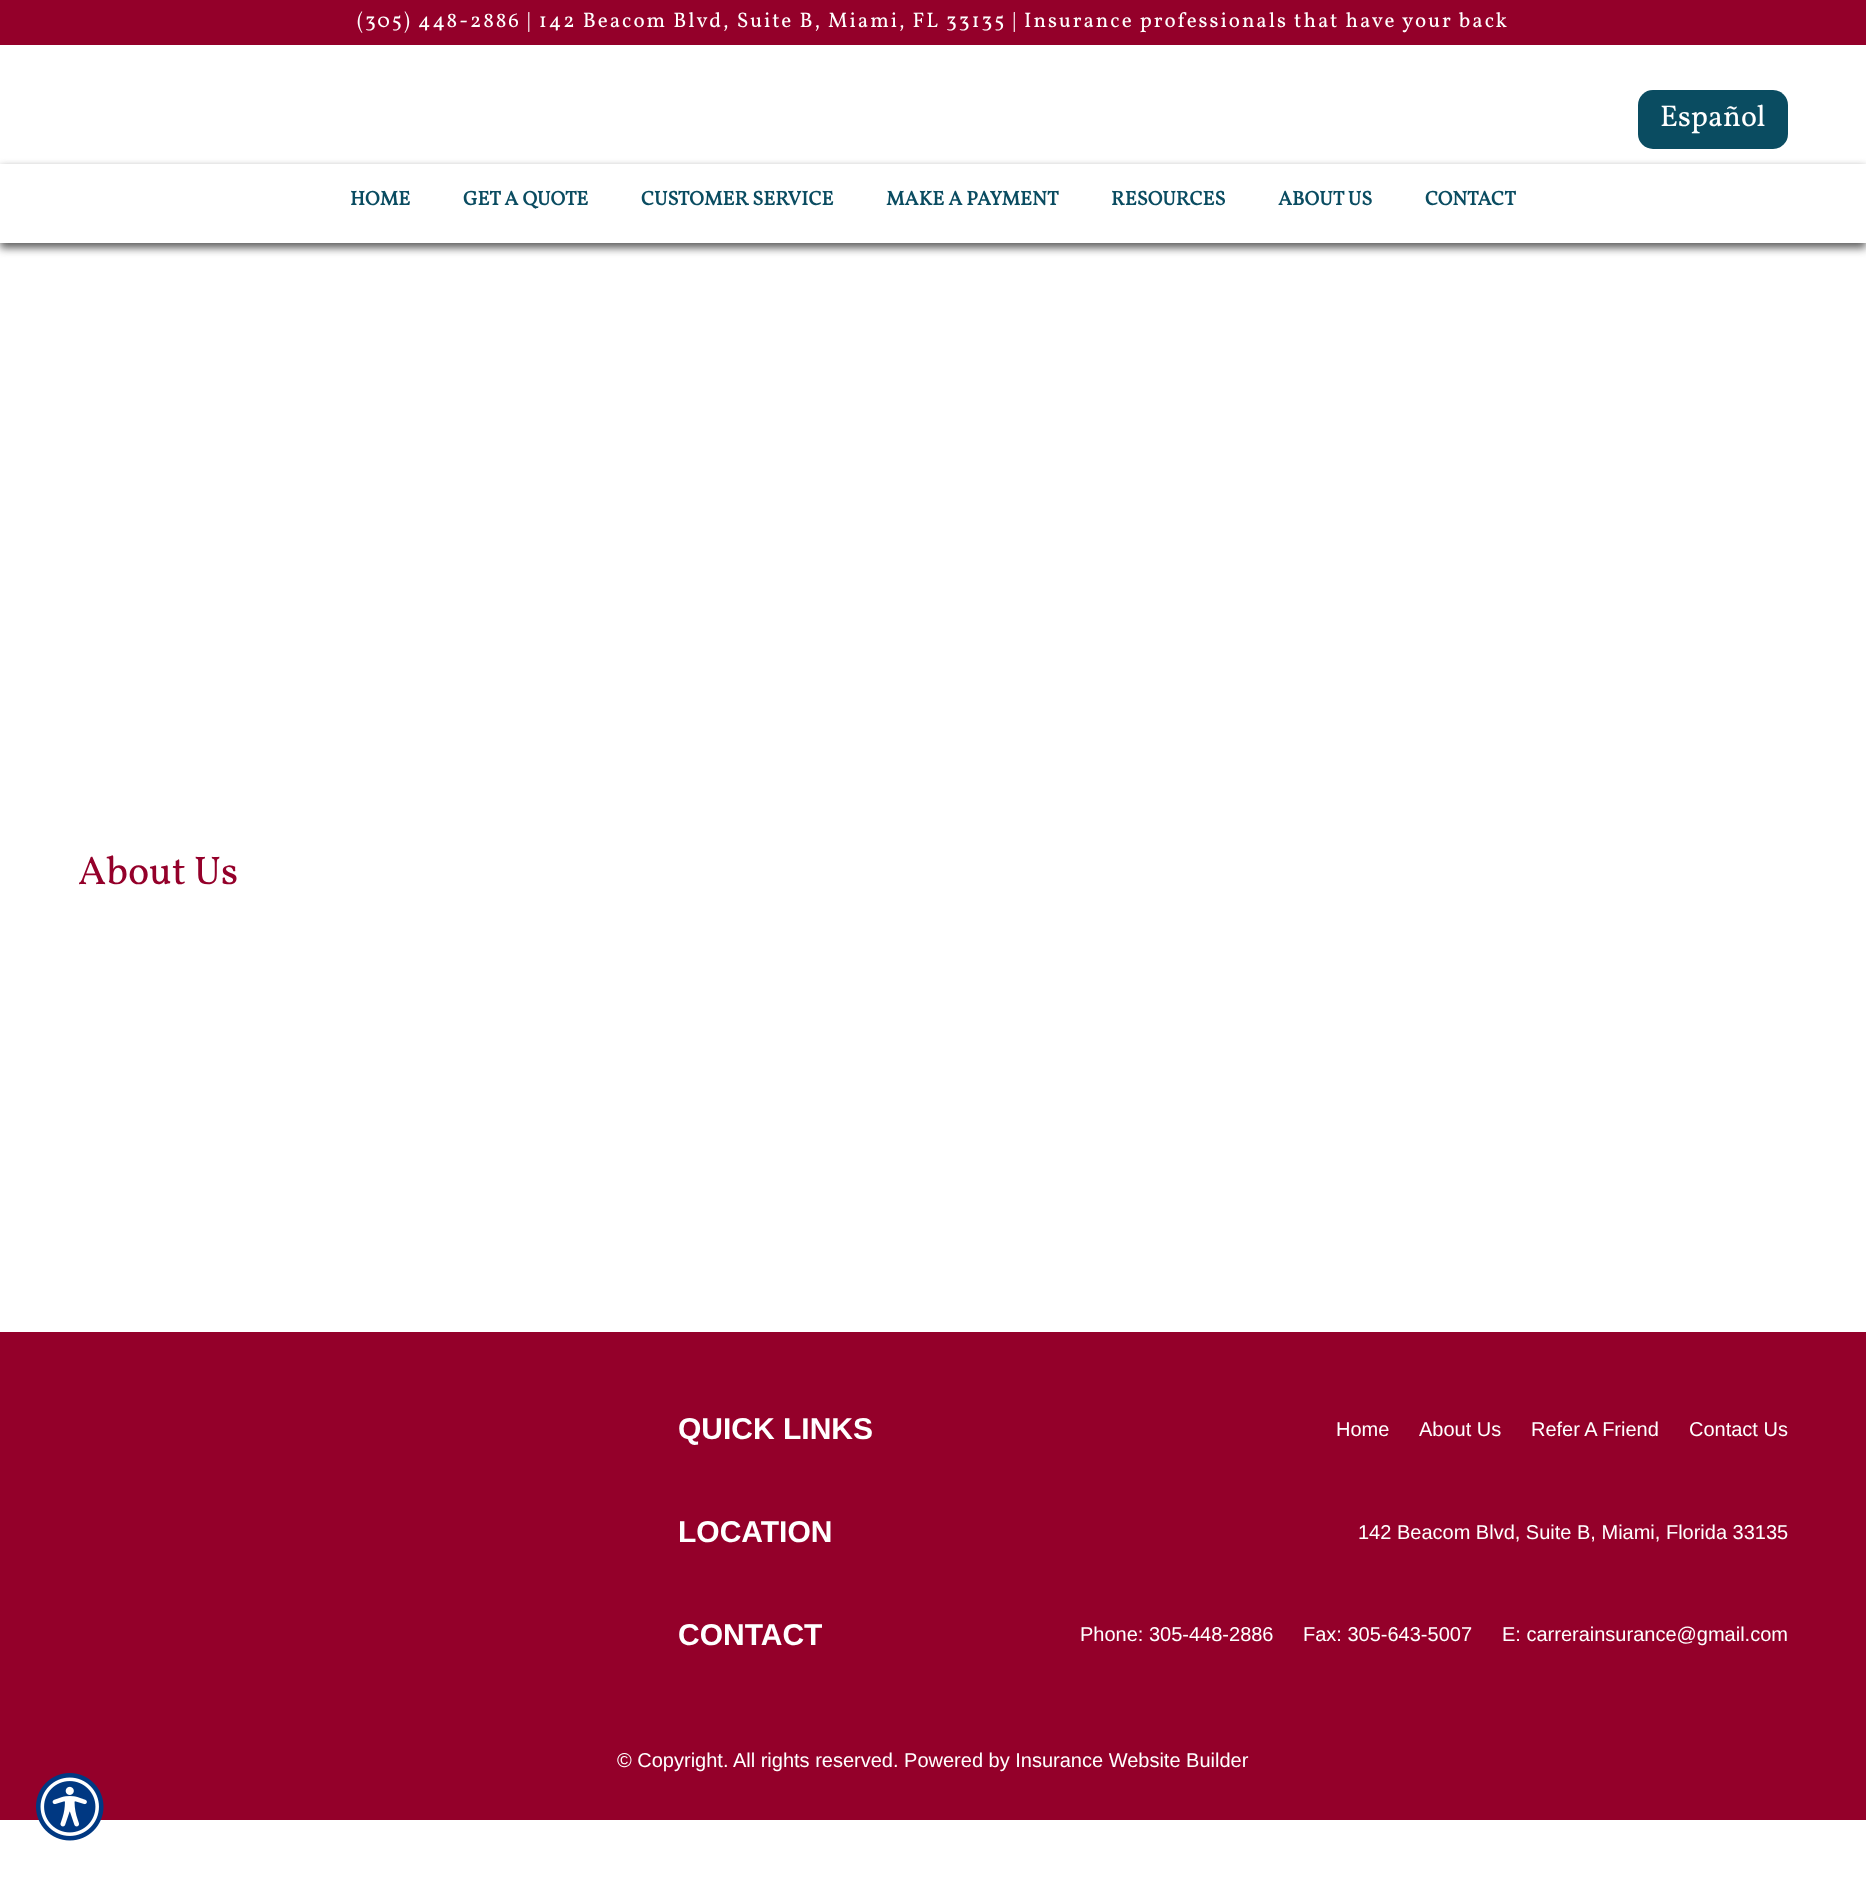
<svg xmlns="http://www.w3.org/2000/svg" width="1866" height="1883" viewBox="0 0 1866 1883">
  <style>
    .t1 { font: 21px Vollkorn; letter-spacing: 1.95px; fill: #fff; }
    .t2 { font: 30px Vollkorn; fill: #fff; }
    .t3 { font: bold 20px Vollkorn; fill: #0a4c61; }
    .t4 { font: 40px Vollkorn; fill: #94002a; }
    .t5 { font: bold 30px Liberation Sans; fill: #fff; }
    .t6 { font: 20px Liberation Sans; fill: #fff; }
  </style>
  <defs>
    <clipPath id="clip1"><path d="M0 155H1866V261H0ZM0 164H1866V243H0Z" clip-rule="evenodd"/></clipPath>
  </defs>
  <rect width="100%" height="100%" fill="#fff"/>
  <rect x="0" y="0" width="1866" height="45" fill="#94002a"/>
  <text x="357" y="27" class="t1">(305) 448-2886 | 142 Beacom Blvd, Suite B, Miami, FL 33135 | Insurance professionals that have your back</text>
  <rect x="1638" y="90" width="150" height="59" rx="15" fill="#0a4c61"/>
  <text x="1660" y="126" class="t2">Español</text>
  <g clip-path="url(#clip1)">
    <rect x="0" y="168" width="1866" height="80" fill="#5f5f5f" filter="blur(4px)"/>
  </g>
  <text x="350" y="205" class="t3">HOME</text>
  <text x="463" y="205" class="t3">GET A QUOTE</text>
  <text x="641" y="205" class="t3">CUSTOMER SERVICE</text>
  <text x="886" y="205" class="t3">MAKE A PAYMENT</text>
  <text x="1111" y="205" class="t3">RESOURCES</text>
  <text x="1278" y="205" class="t3">ABOUT US</text>
  <text x="1425" y="205" class="t3">CONTACT</text>
  <text x="78" y="884" class="t4">About Us</text>
  <rect x="0" y="1332" width="1866" height="488" fill="#94002a"/>
  <text x="678" y="1439" class="t5">QUICK LINKS</text>
  <text x="1336" y="1436" class="t6">Home</text>
  <text x="1419" y="1436" class="t6">About Us</text>
  <text x="1531" y="1436" class="t6">Refer A Friend</text>
  <text x="1689" y="1436" class="t6">Contact Us</text>
  <text x="678" y="1542" class="t5">LOCATION</text>
  <text x="1358" y="1539" class="t6">142 Beacom Blvd, Suite B, Miami, Florida 33135</text>
  <text x="678" y="1645" class="t5">CONTACT</text>
  <text x="1080" y="1641" class="t6">Phone: 305-448-2886</text>
  <text x="1303" y="1641" class="t6">Fax: 305-643-5007</text>
  <text x="1502" y="1641" class="t6">E: carrerainsurance@gmail.com</text>
  <text x="617" y="1767" class="t6">© Copyright. All rights reserved. Powered by Insurance Website Builder</text>
  <image x="36" y="1773" width="68" height="68" href="images/1.png"/>
</svg>
